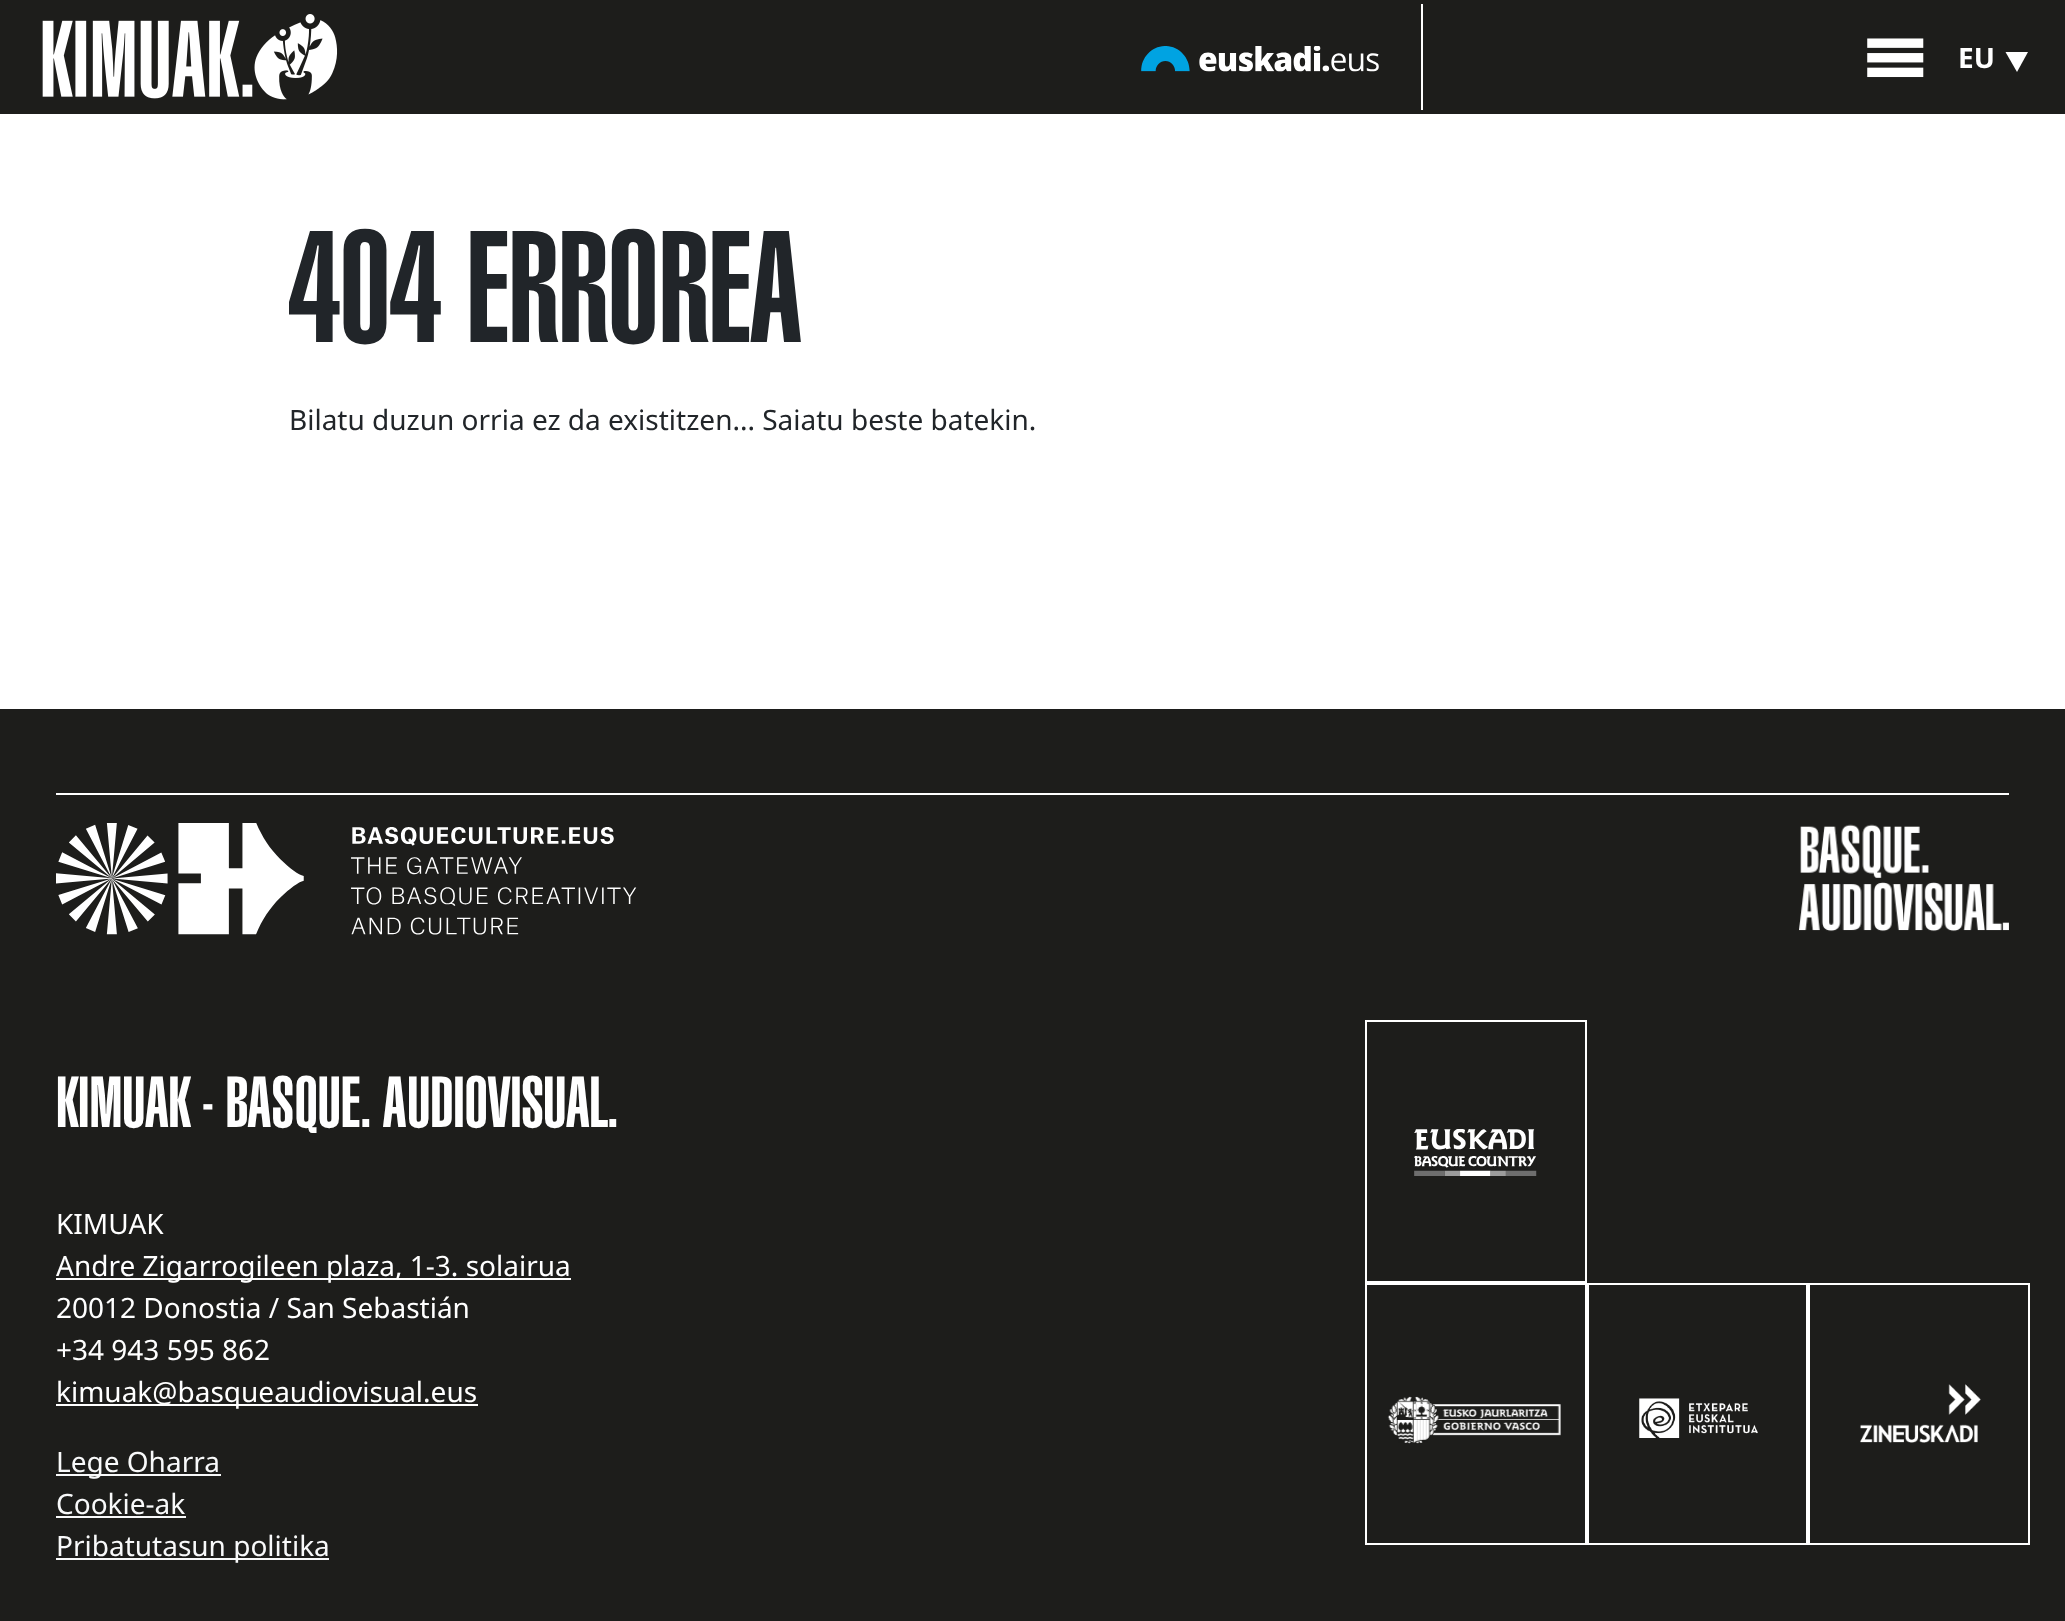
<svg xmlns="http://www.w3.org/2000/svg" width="2065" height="1621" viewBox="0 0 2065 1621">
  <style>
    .t1 { font: bold 28px Noto Sans; fill: #fff; }
    .t2 { font: 154px 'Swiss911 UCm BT'; fill: #212529; }
    .t3 { font: 28px Noto Sans; fill: #212529; }
    .t4 { font: 70px 'Swiss911 UCm BT'; fill: #fff; }
    .t5 { font: 28px Noto Sans; fill: #fff; }
    .t6 { font: 28px Noto Sans; fill: #f8f9fa; }
  </style>
  <rect width="100%" height="100%" fill="#fff"/>
  <rect x="0" y="0" width="2065" height="114" fill="#1d1d1b"/>
  <image x="42" y="14" width="296" height="86" href="images/1.png"/>
  <rect x="1421" y="4" width="2" height="106" fill="#fff"/>
  <image x="1141" y="46" width="238" height="26" href="images/2.png"/>
  <image x="1867" y="38" width="57" height="40" href="images/3.png"/>
  <text x="1958" y="68" class="t1">EU</text>
  <path d="M2017 72L2005.5 52H2028Z" fill="#fff"/>
  <text x="289" y="342" class="t2">404 ERROREA</text>
  <text x="289" y="430" class="t3">Bilatu duzun orria ez da existitzen... Saiatu beste batekin.</text>
  <rect x="0" y="709" width="2065" height="912" fill="#1d1d1b"/>
  <rect x="56" y="793" width="1953" height="2" fill="#fff"/>
  <image x="56" y="823" width="581" height="112" href="images/4.png"/>
  <image x="1799" y="824" width="210" height="108" href="images/5.png"/>
  <text x="56" y="1127" class="t4">KIMUAK - BASQUE. AUDIOVISUAL.</text>
  <text x="56" y="1234" class="t5">KIMUAK</text>
  <rect x="56" y="1278" width="515" height="2" fill="#fff"/>
  <text x="56" y="1276" class="t5">Andre Zigarrogileen plaza, 1-3. solairua</text>
  <text x="56" y="1318" class="t5">20012 Donostia / San Sebastián</text>
  <text x="56" y="1360" class="t5">+34 943 595 862</text>
  <rect x="56" y="1404" width="422" height="2" fill="#fff"/>
  <text x="56" y="1402" class="t5">kimuak@basqueaudiovisual.eus</text>
  <rect x="56" y="1474" width="165" height="2" fill="#f8f9fa"/>
  <text x="56" y="1472" class="t6">Lege Oharra</text>
  <text x="56" y="1514" class="t6">Cookie-ak</text>
  <rect x="56" y="1516" width="130" height="2" fill="#f8f9fa"/>
  <rect x="56" y="1558" width="273" height="2" fill="#f8f9fa"/>
  <text x="56" y="1556" class="t6">Pribatutasun politika</text>
  <rect x="1366" y="1021" width="220" height="261" fill="none" stroke="#fff" stroke-width="2"/>
  <image x="1414" y="1129" width="123" height="47" href="images/6.png"/>
  <rect x="1366" y="1284" width="220" height="260" fill="none" stroke="#fff" stroke-width="2"/>
  <image x="1387" y="1396" width="174" height="48" href="images/7.png"/>
  <rect x="1588" y="1284" width="219" height="260" fill="none" stroke="#fff" stroke-width="2"/>
  <image x="1639" y="1398" width="119" height="40" href="images/8.png"/>
  <rect x="1809" y="1284" width="220" height="260" fill="none" stroke="#fff" stroke-width="2"/>
  <image x="1860" y="1384" width="121" height="59" href="images/9.png"/>
</svg>
